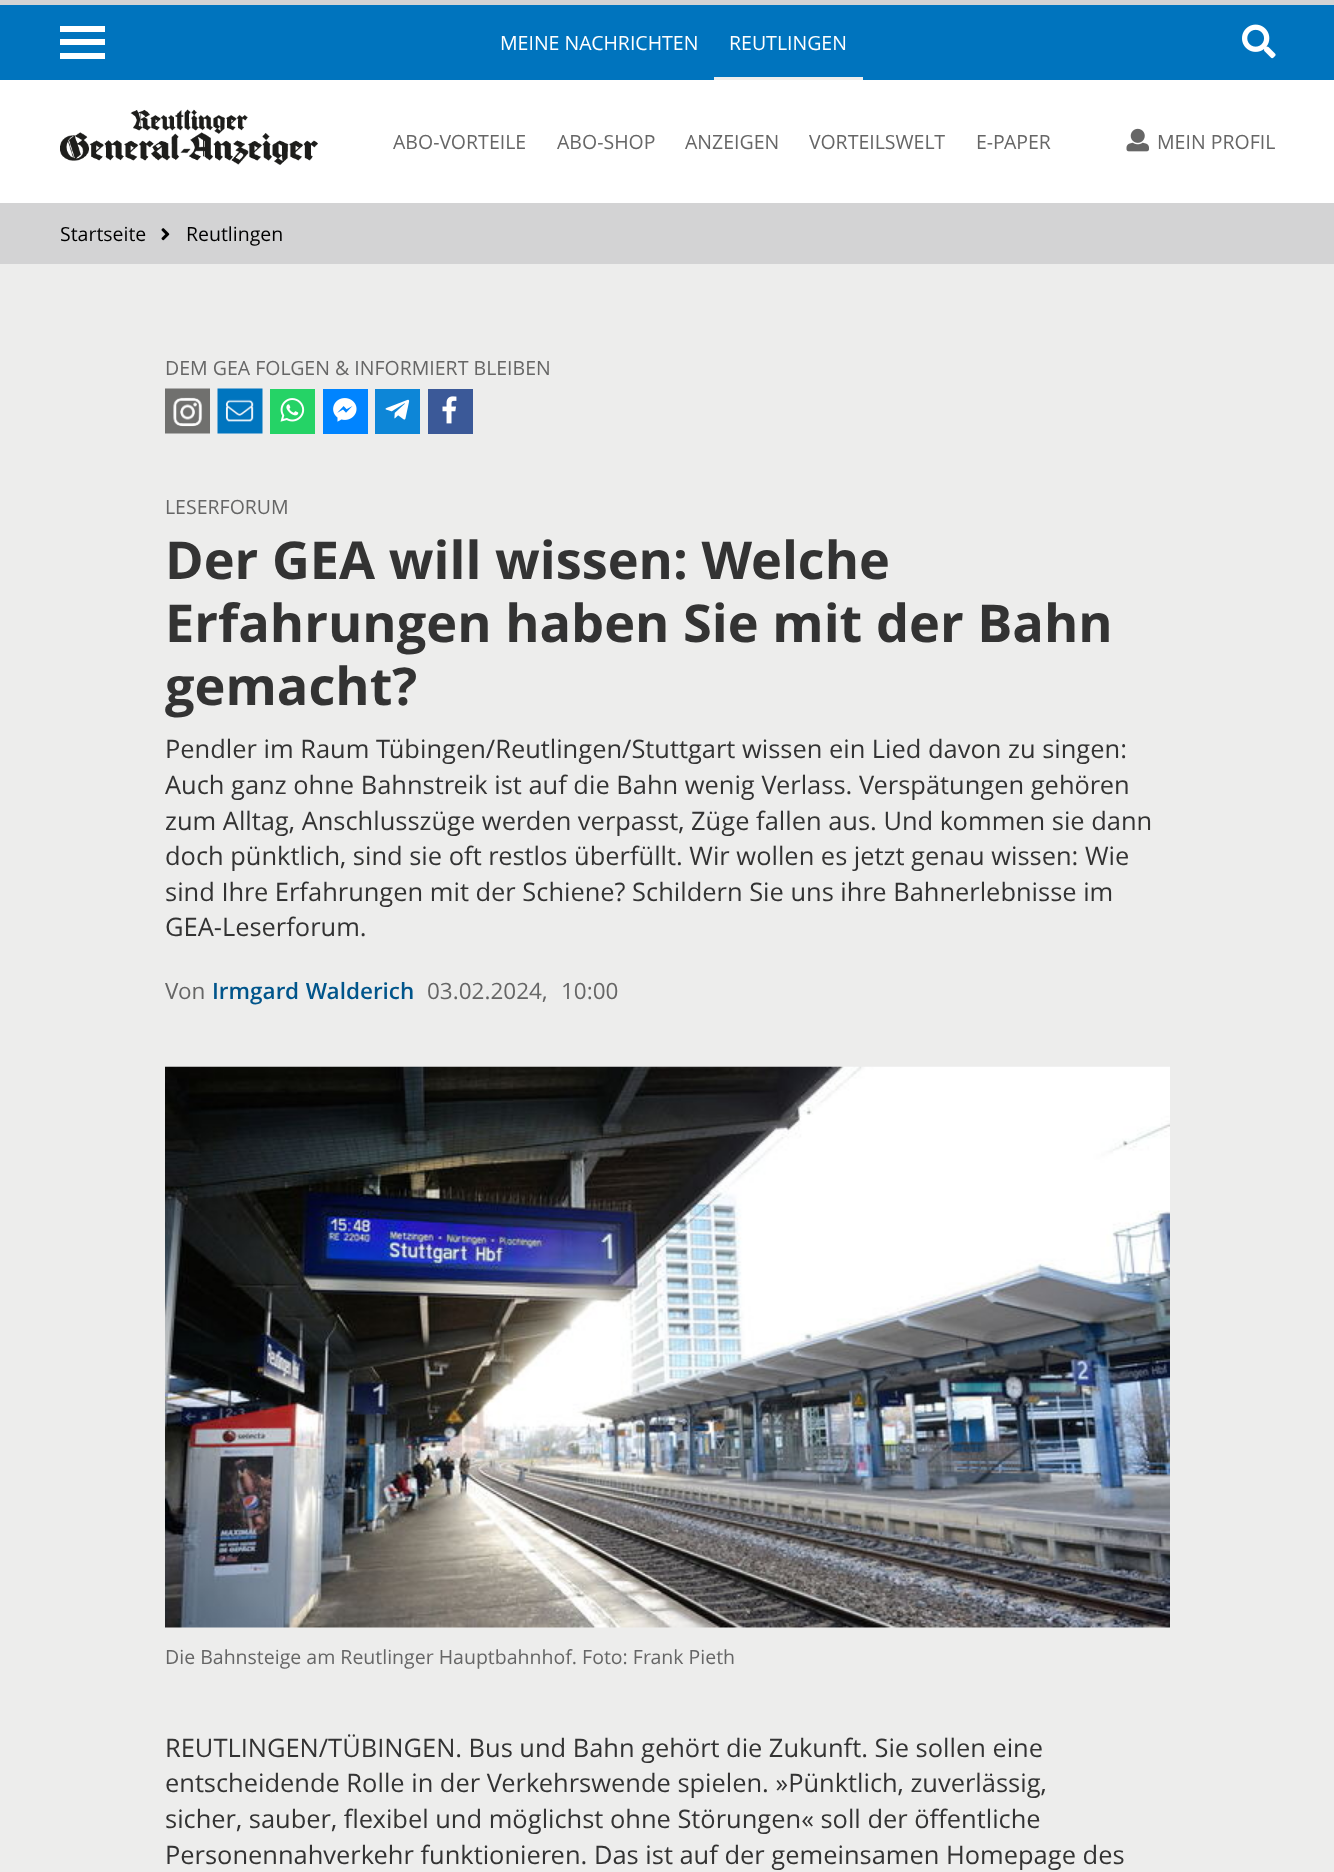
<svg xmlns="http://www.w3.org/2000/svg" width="1334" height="1872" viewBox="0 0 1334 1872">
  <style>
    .t1 { font: 19.5px Open Sans; fill: #fff; }
    .t2 { font: 19.5px Open Sans; fill: #666; }
    .t3 { font: 19.5px Open Sans; fill: #000; }
    .t4 { font: bold 52.3px Open Sans; fill: #333; }
    .t5 { font: 25.45px Open Sans; fill: #333; }
    .t6 { font: 22.5px Open Sans; fill: #666; }
    .t7 { font: 600 22.5px Open Sans; fill: #00558b; }
  </style>
  <rect width="100%" height="100%" fill="#d3d3d4"/>
  <rect x="0" y="264" width="1334" height="1608" fill="#ededec"/>
  <rect x="0" y="80" width="1334" height="123" fill="#fff"/>
  <rect x="0" y="5" width="1334" height="75" fill="#0074be"/>
  <rect x="60" y="39" width="45" height="6" fill="#fff"/>
  <rect x="60" y="26" width="45" height="6" fill="#fff"/>
  <rect x="60" y="53" width="45" height="6" fill="#fff"/>
  <text x="500" y="50" class="t1">MEINE NACHRICHTEN</text>
  <text x="729" y="50" class="t1">REUTLINGEN</text>
  <rect x="714" y="77" width="149" height="3" fill="#ededec"/>
  <image x="1242" y="24" width="34" height="35" href="images/1.png"/>
  <image x="60" y="109" width="258" height="56" href="images/2.png"/>
  <text x="393" y="149" class="t2">ABO-VORTEILE</text>
  <text x="557" y="149" class="t2">ABO-SHOP</text>
  <text x="685" y="149" class="t2">ANZEIGEN</text>
  <text x="809" y="149" class="t2">VORTEILSWELT</text>
  <text x="976" y="149" class="t2">E-PAPER</text>
  <image x="1126" y="128" width="23" height="24" href="images/3.png"/>
  <text x="1157" y="149" class="t2">MEIN PROFIL</text>
  <text x="60" y="241" class="t3">Startseite</text>
  <image x="161" y="228" width="9" height="13" href="images/4.png"/>
  <text x="186" y="241" class="t3">Reutlingen</text>
  <text x="165" y="375" class="t2">DEM GEA FOLGEN &amp; INFORMIERT BLEIBEN</text>
  <image x="165" y="388" width="45" height="46" href="images/5.png"/>
  <image x="217" y="388" width="46" height="46" href="images/6.png"/>
  <rect x="270" y="389" width="45" height="45" fill="#25d366"/>
  <image x="280" y="398" width="25" height="24" href="images/7.png"/>
  <rect x="323" y="389" width="45" height="45" fill="#0084ff"/>
  <image x="333" y="398" width="24" height="24" href="images/8.png"/>
  <rect x="375" y="389" width="45" height="45" fill="#0d86d7"/>
  <image x="385" y="399" width="25" height="21" href="images/9.png"/>
  <rect x="428" y="389" width="45" height="45" fill="#3b5998"/>
  <image x="442" y="396" width="15" height="28" href="images/10.png"/>
  <text x="165" y="514" class="t2">LESERFORUM</text>
  <text x="165" y="579" class="t4">Der GEA will wissen: Welche</text>
  <text x="165" y="642" class="t4">Erfahrungen haben Sie mit der Bahn</text>
  <text x="165" y="705" class="t4">gemacht?</text>
  <text x="165" y="758" class="t5">Pendler im Raum Tübingen/Reutlingen/Stuttgart wissen ein Lied davon zu singen:</text>
  <text x="165" y="794" class="t5">Auch ganz ohne Bahnstreik ist auf die Bahn wenig Verlass. Verspätungen gehören</text>
  <text x="165" y="830" class="t5">zum Alltag, Anschlusszüge werden verpasst, Züge fallen aus. Und kommen sie dann</text>
  <text x="165" y="865" class="t5">doch pünktlich, sind sie oft restlos überfüllt. Wir wollen es jetzt genau wissen: Wie</text>
  <text x="165" y="901" class="t5">sind Ihre Erfahrungen mit der Schiene? Schildern Sie uns ihre Bahnerlebnisse im</text>
  <text x="165" y="936" class="t5">GEA-Leserforum.</text>
  <text x="165" y="999" class="t6">Von</text>
  <text x="212" y="999" word-spacing="1" class="t7">Irmgard Walderich</text>
  <text x="427" y="999" class="t6">03.02.2024,</text>
  <text x="561" y="999" class="t6">10:00</text>
  <image x="165" y="1066" width="1005" height="562" href="images/11.png"/>
  <text x="165" y="1664" class="t2">Die Bahnsteige am Reutlinger Hauptbahnhof. Foto: Frank Pieth</text>
  <text x="165" y="1757" word-spacing="-0.1" class="t5">REUTLINGEN/TÜBINGEN. Bus und Bahn gehört die Zukunft. Sie sollen eine</text>
  <text x="165" y="1792" class="t5">entscheidende Rolle in der Verkehrswende spielen. »Pünktlich, zuverlässig,</text>
  <text x="165" y="1828" class="t5">sicher, sauber, flexibel und möglichst ohne Störungen« soll der öffentliche</text>
  <text x="165" y="1864" class="t5">Personennahverkehr funktionieren. Das ist auf der gemeinsamen Homepage des</text>
</svg>
